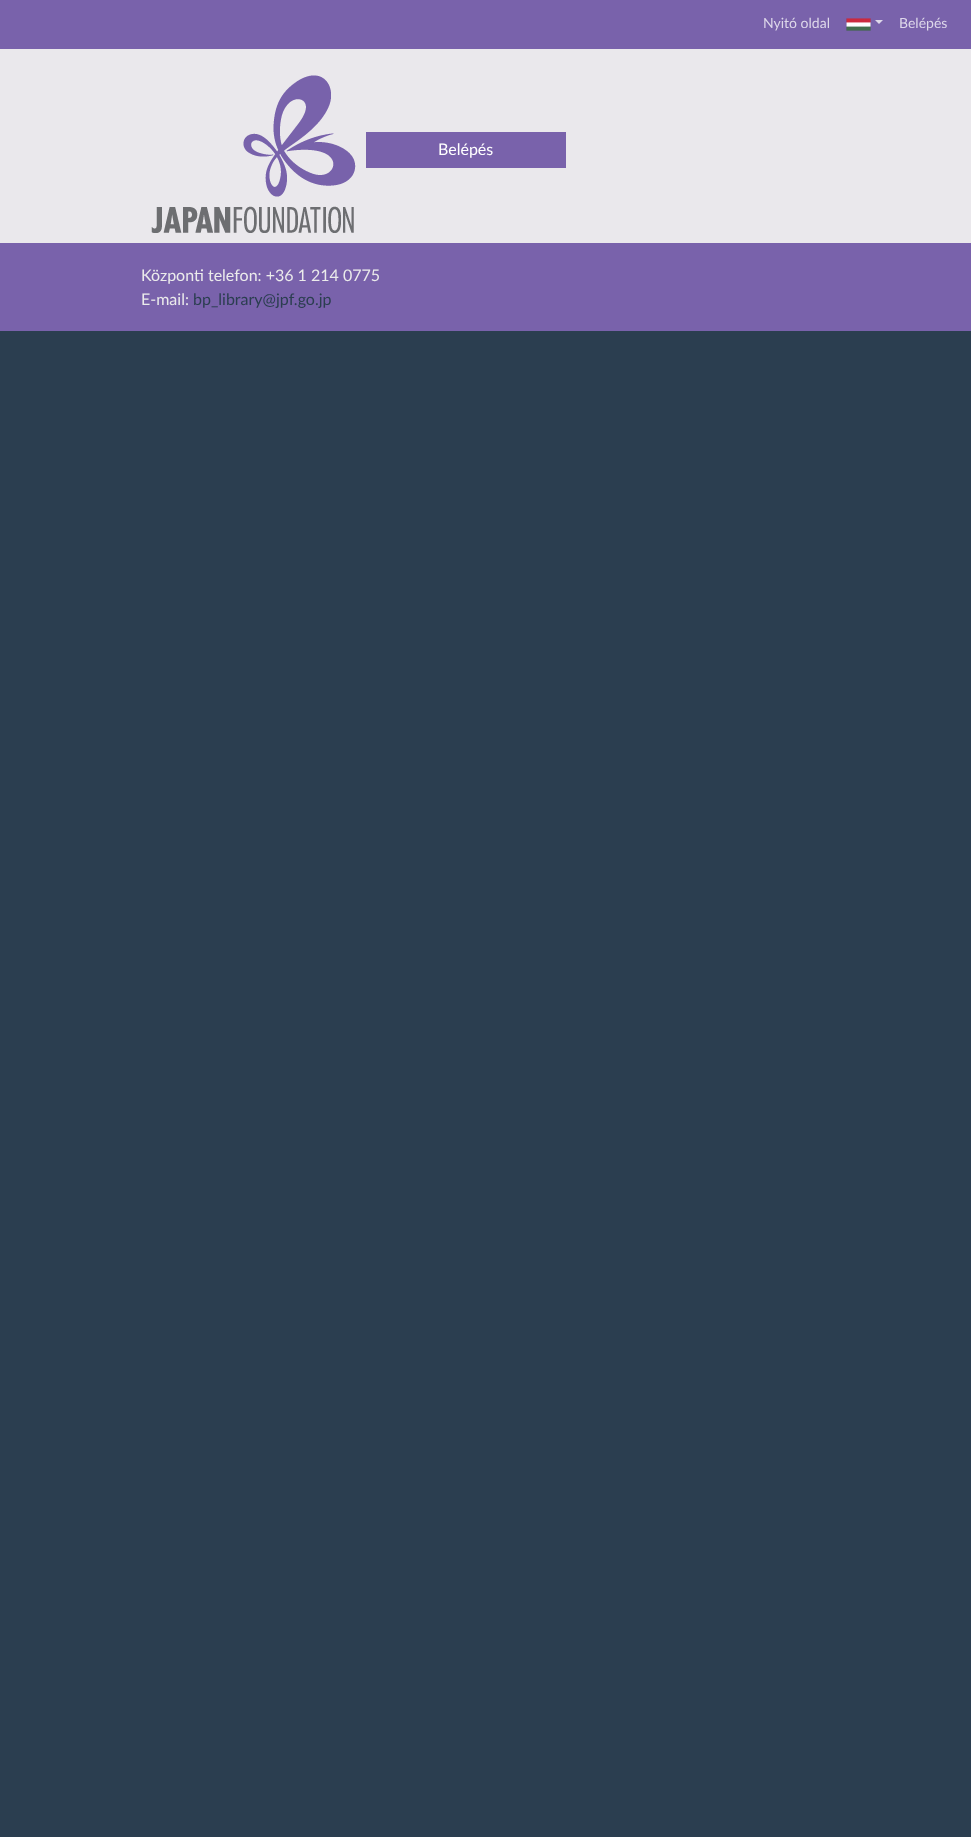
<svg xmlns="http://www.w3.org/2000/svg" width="971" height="1837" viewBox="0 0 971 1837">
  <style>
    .t1 { font: 14px Lato; fill: #ded8ea; }
    .t2 { font: 16px Lato; fill: #fff; }
    .t3 { font: 16px Lato; fill: #ebebeb; }
    .t4 { font: 16px Lato; fill: #2b3e50; }
  </style>
  <rect width="100%" height="100%" fill="#2b3e50"/>
  <rect x="0" y="0" width="971" height="49" fill="#7962ab"/>
  <text x="763" y="28" class="t1">Nyitó oldal</text>
  <image x="846" y="18" width="25" height="13" href="images/1.png"/>
  <path d="M875 20H883L879 24Z" fill="#ded8ea"/>
  <text x="899" y="28" class="t1">Belépés</text>
  <rect x="0" y="49" width="971" height="194" fill="#eae8ec"/>
  <image x="151" y="75" width="205" height="158" href="images/2.png"/>
  <rect x="366" y="132" width="200" height="36" fill="#7962ab"/>
  <text x="438" y="155" class="t2">Belépés</text>
  <rect x="0" y="243" width="971" height="88" fill="#7962ab"/>
  <text x="141" y="281" class="t3">Központi telefon: +36 1 214 0775</text>
  <text x="141" y="305" class="t3">E-mail:</text>
  <text x="193" y="305" class="t4">bp_library@jpf.go.jp</text>
</svg>
